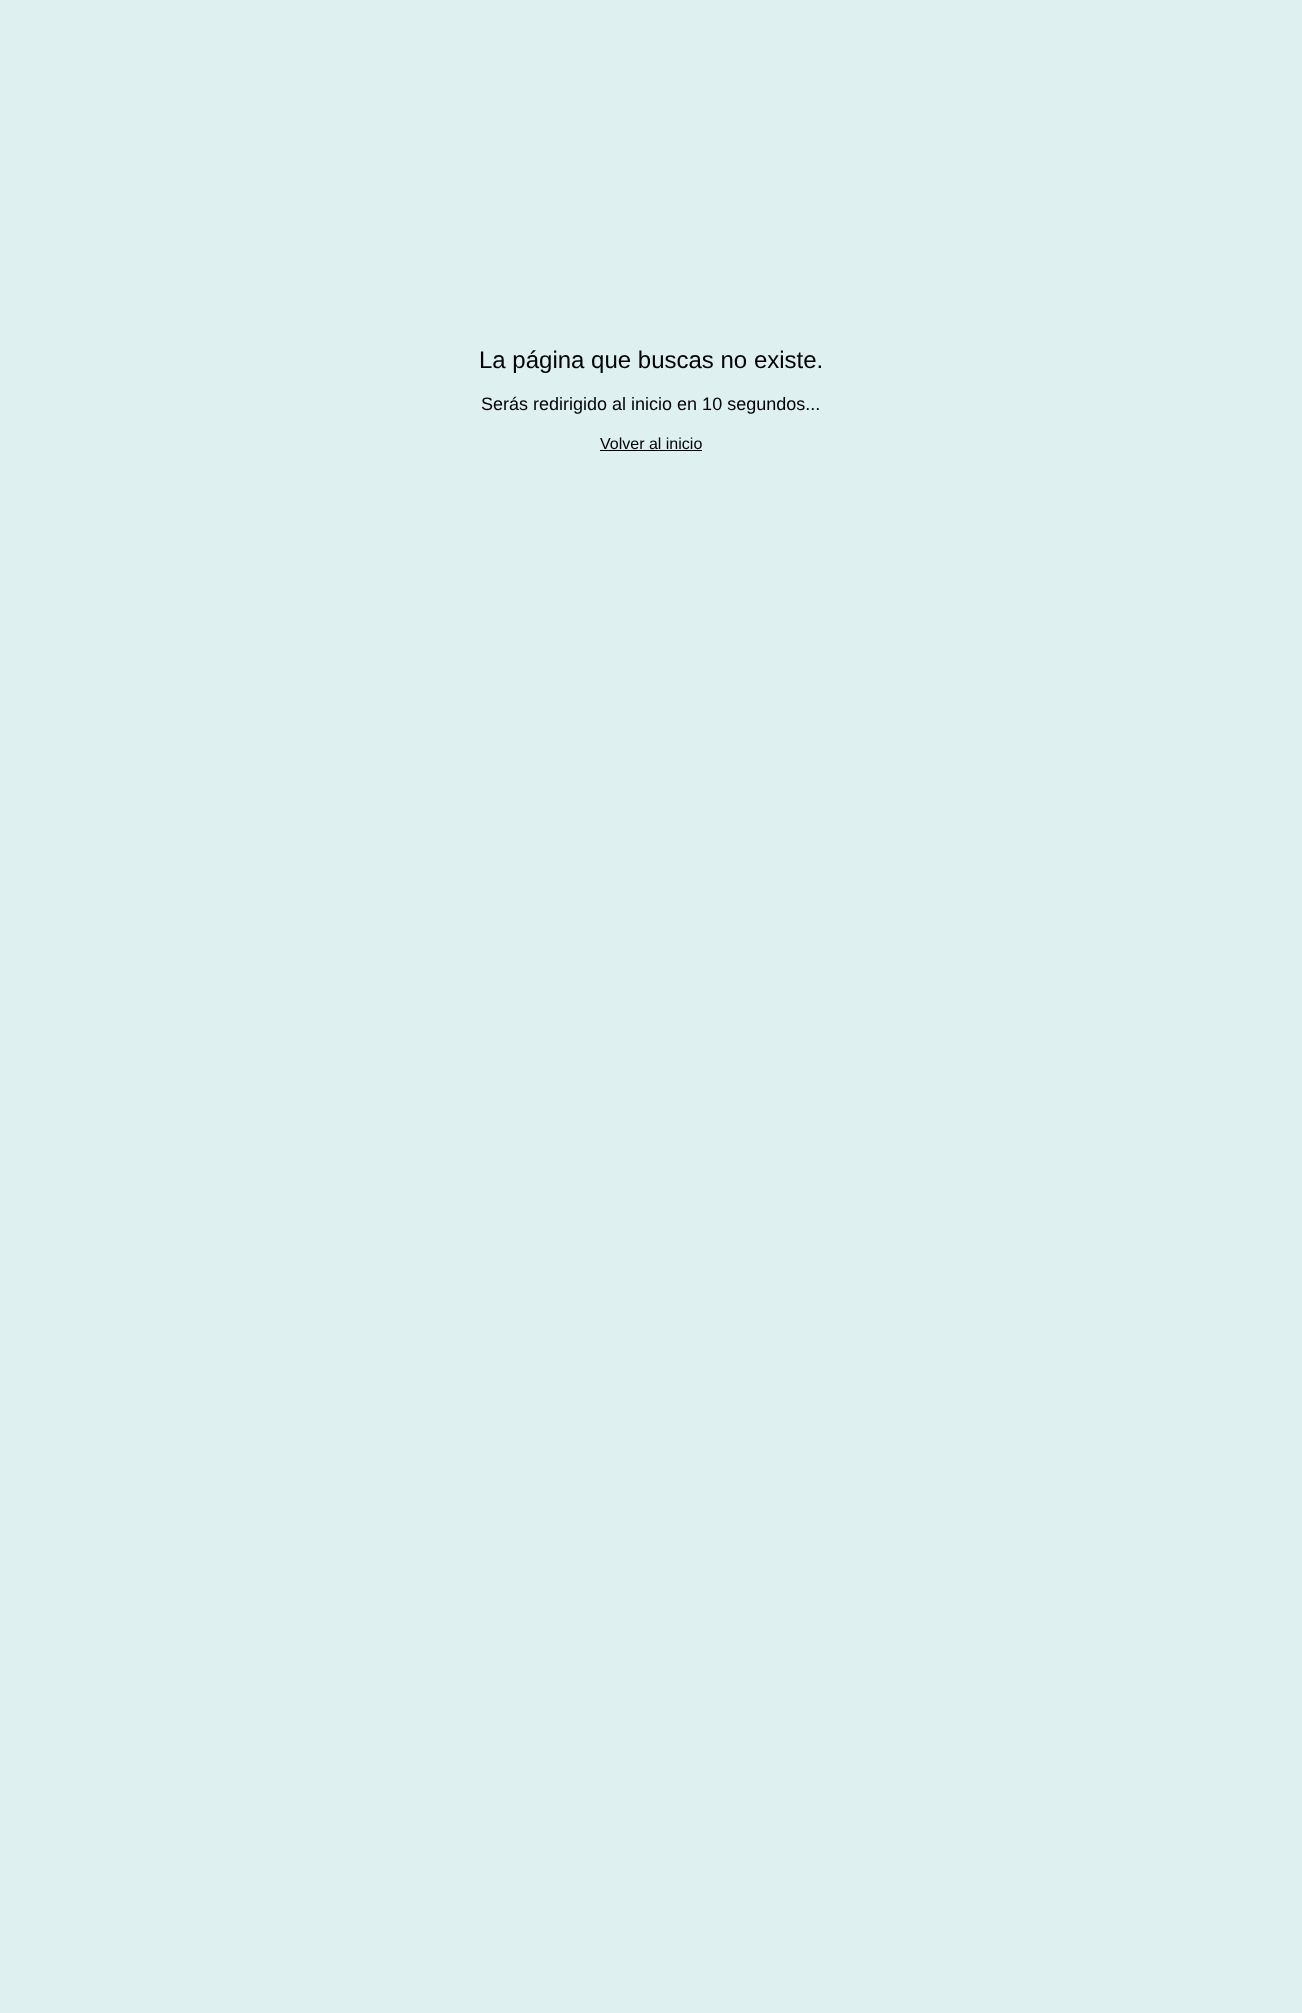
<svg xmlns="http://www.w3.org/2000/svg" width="1302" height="2013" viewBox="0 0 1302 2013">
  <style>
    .t1 { font: 24px Liberation Sans; fill: #000; }
    .t2 { font: 18px Liberation Sans; fill: #000; }
    .t3 { font: 16px Liberation Sans; fill: #000; }
  </style>
  <rect width="100%" height="100%" fill="#def0f0"/>
  <text x="479" y="368" class="t1">La página que buscas no existe.</text>
  <text x="481" y="410" class="t2">Serás redirigido al inicio en 10 segundos...</text>
  <text x="600" y="449" class="t3">Volver al inicio</text>
  <rect x="600" y="450" width="102" height="1" fill="#000"/>
</svg>
